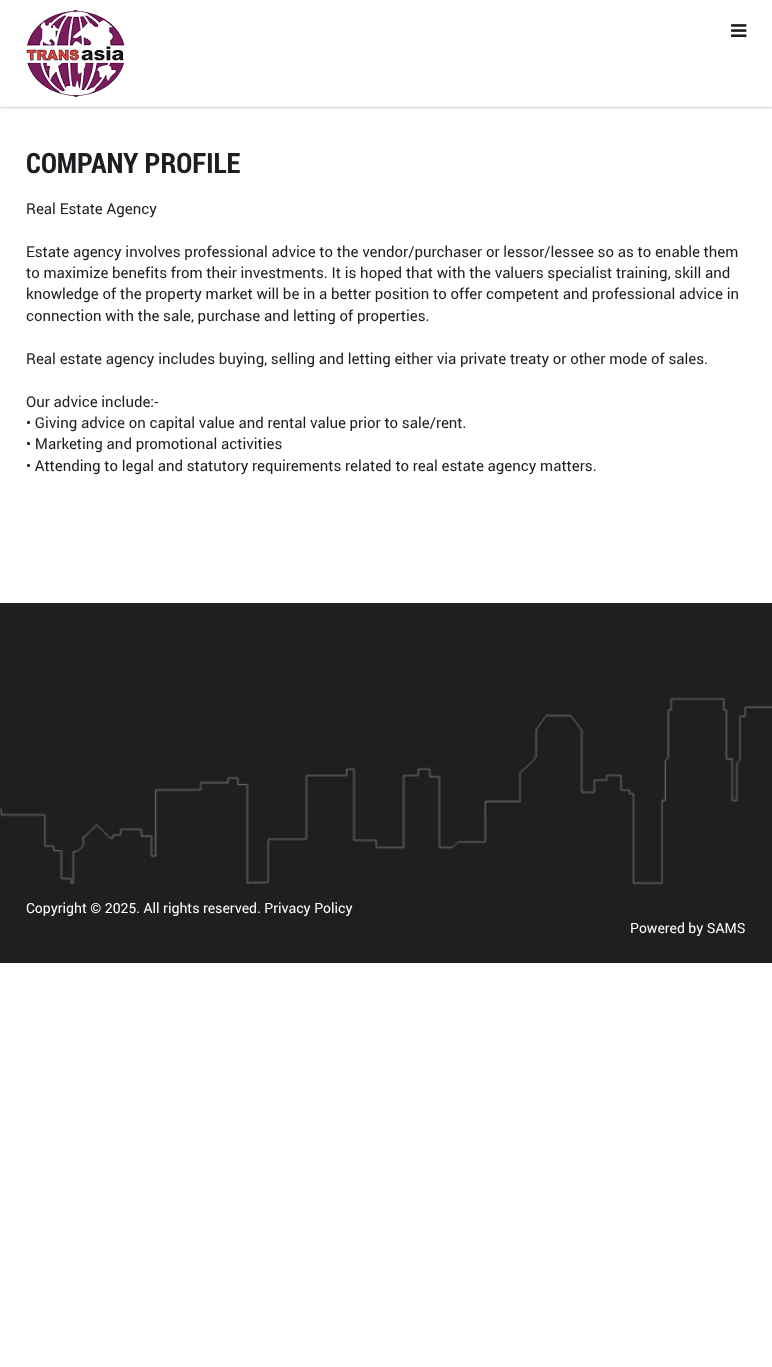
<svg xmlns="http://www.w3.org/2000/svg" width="772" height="1367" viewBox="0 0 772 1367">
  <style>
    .t1 { font: bold 28px Roboto Condensed; fill: #1f1d22; }
    .t2 { font: 15px Roboto; fill: #1f1d22; }
    .t3 { font: 14px Roboto; fill: #fff; }
  </style>
  <defs>
    <clipPath id="clip1"><rect x="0" y="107" width="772" height="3"/></clipPath>
  </defs>
  <rect width="100%" height="100%" fill="#fff"/>
  <g clip-path="url(#clip1)">
    <rect x="0" y="0" width="772" height="107" fill="#9e9e9e" filter="blur(1.5px)"/>
  </g>
  <image x="26" y="10" width="99" height="87" href="images/1.png"/>
  <image x="731" y="24" width="16" height="13" href="images/2.png"/>
  <text x="26" y="173" class="t1">COMPANY PROFILE</text>
  <text x="26" y="214" class="t2">Real Estate Agency</text>
  <text x="26" y="257" class="t2">Estate agency involves professional advice to the vendor/purchaser or lessor/lessee so as to enable them</text>
  <text x="26" y="278" class="t2">to maximize benefits from their investments. It is hoped that with the valuers specialist training, skill and</text>
  <text x="26" y="299" class="t2">knowledge of the property market will be in a better position to offer competent and professional advice in</text>
  <text x="26" y="321" class="t2">connection with the sale, purchase and letting of properties.</text>
  <text x="26" y="364" class="t2">Real estate agency includes buying, selling and letting either via private treaty or other mode of sales.</text>
  <text x="26" y="407" class="t2">Our advice include:-</text>
  <text x="26" y="428" class="t2">• Giving advice on capital value and rental value prior to sale/rent.</text>
  <text x="26" y="449" class="t2">• Marketing and promotional activities</text>
  <text x="26" y="471" class="t2">• Attending to legal and statutory requirements related to real estate agency matters.</text>
  <rect x="0" y="603" width="772" height="80" fill="#1f1f1f"/>
  <image x="0" y="683" width="772" height="280" href="images/3.png"/>
  <text x="26" y="913" class="t3">Copyright © 2025. All rights reserved. Privacy Policy</text>
  <text x="630" y="933" class="t3">Powered by SAMS</text>
</svg>
